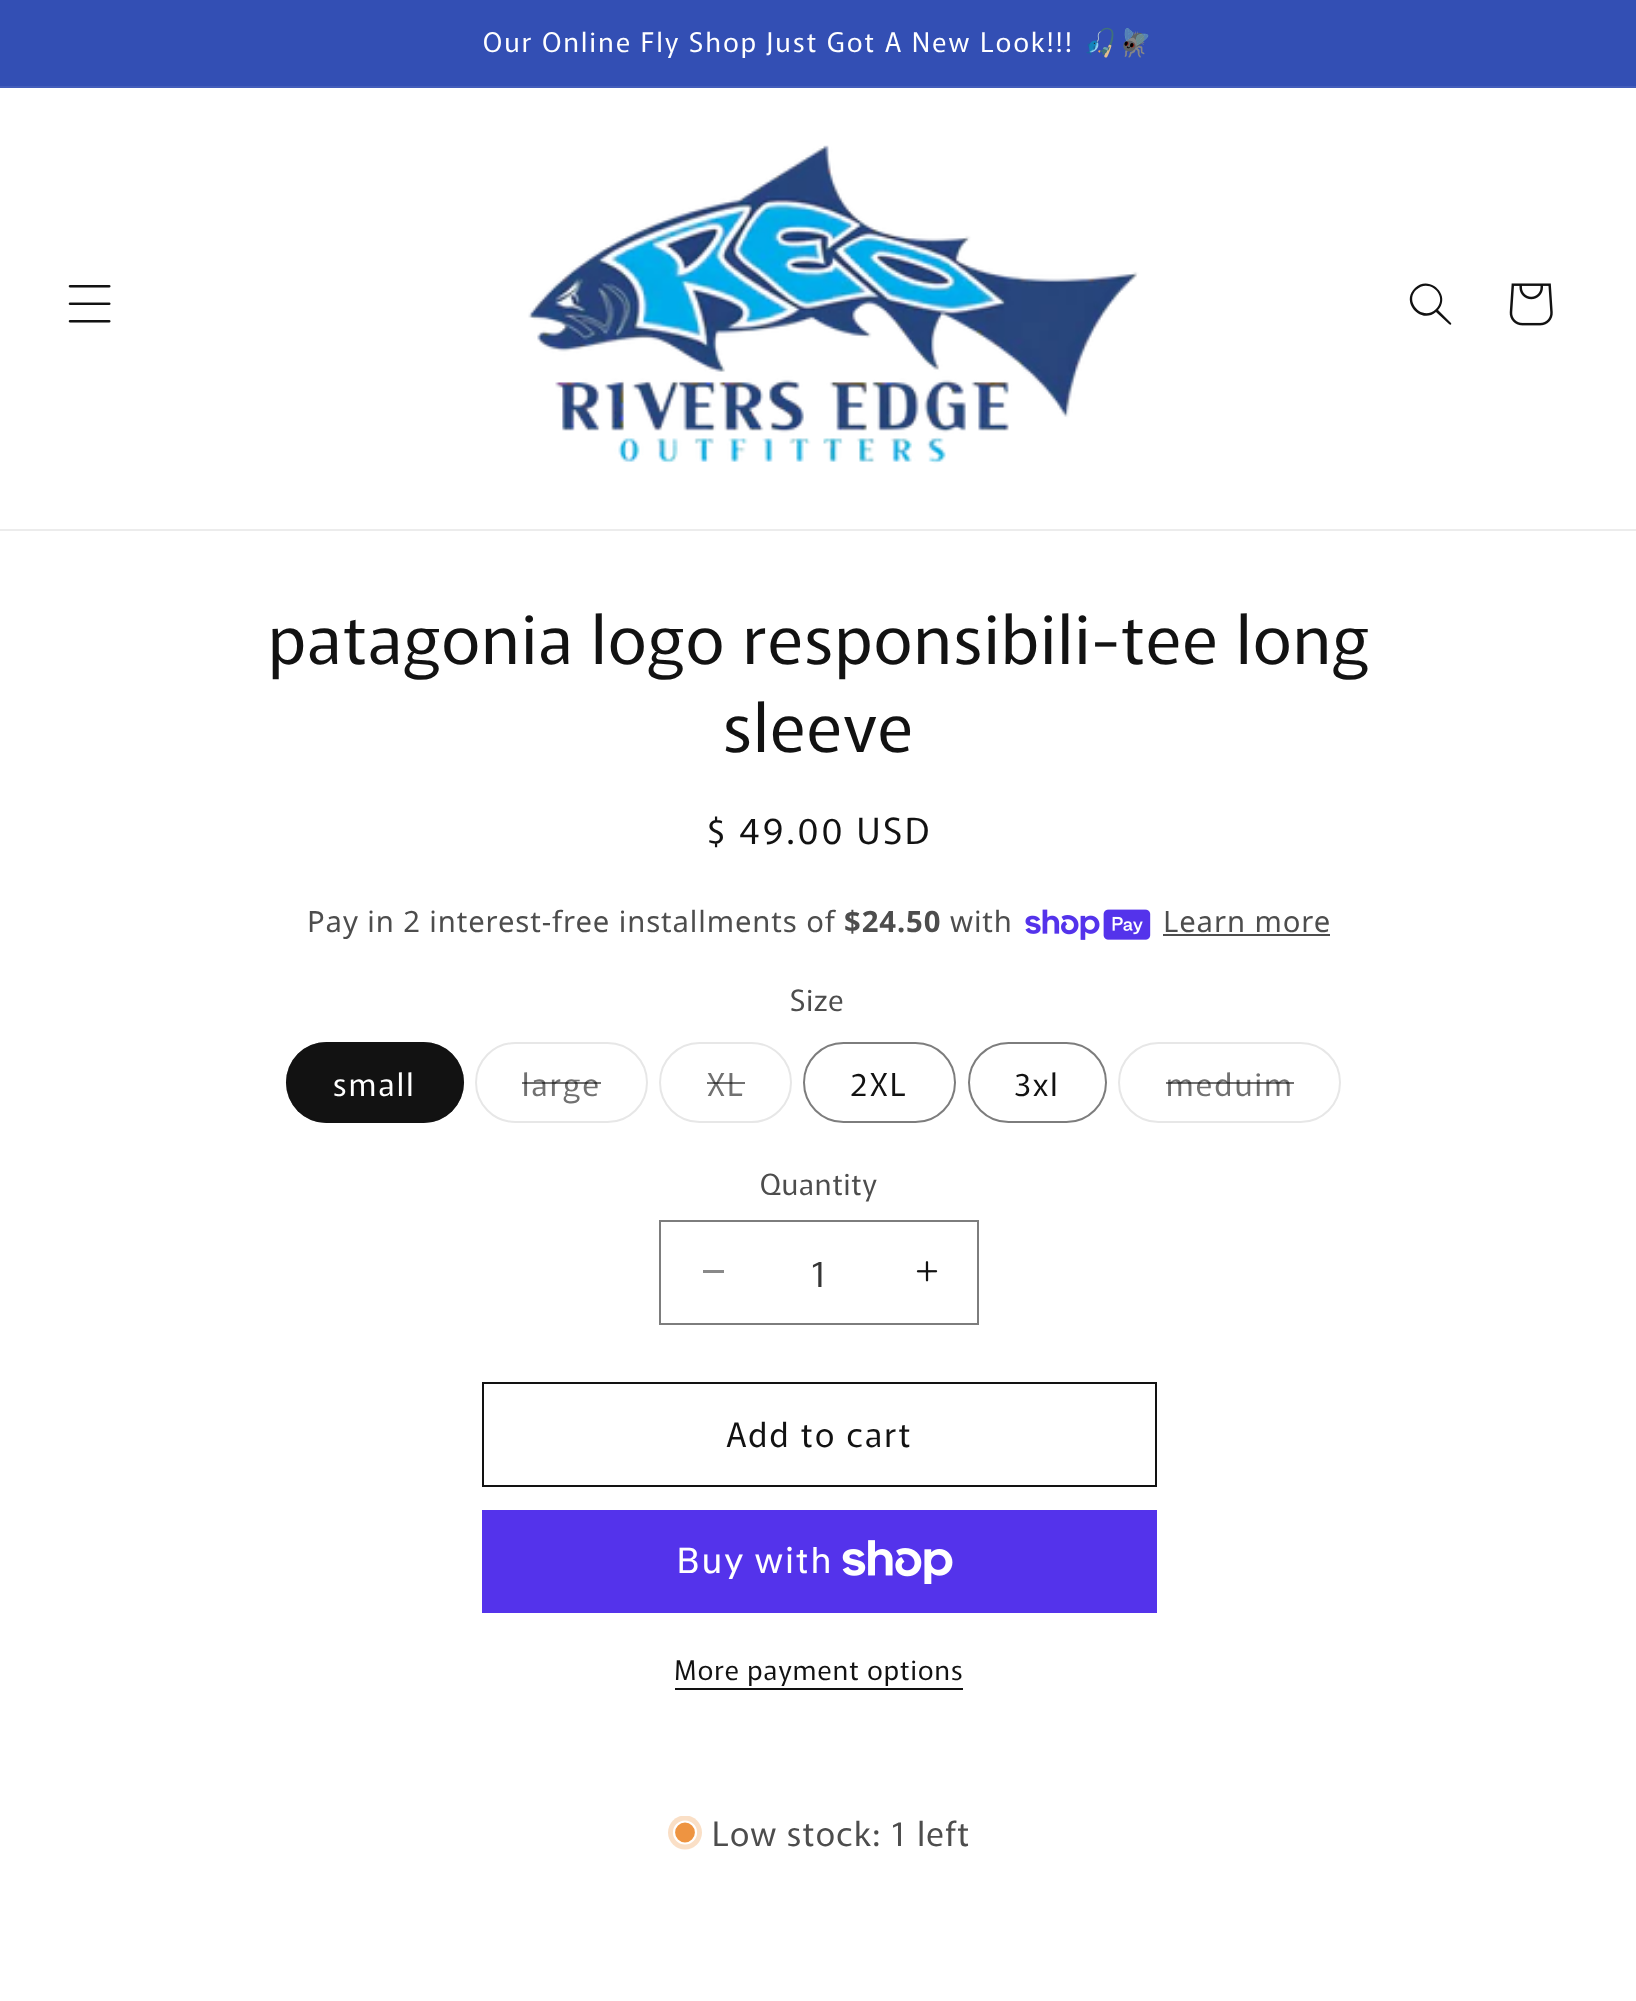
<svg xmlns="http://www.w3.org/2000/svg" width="1636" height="2001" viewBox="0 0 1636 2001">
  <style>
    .t1 { font: 27px Murecho; letter-spacing: 2.25px; fill: #fff; }
    .t2 { font: 27px Noto Color Emoji; letter-spacing: 2.25px; fill: #fff; }
    .t3 { font: 67.5px Murecho; letter-spacing: 1.35px; fill: #121212; }
    .t4 { font: 36px Murecho; letter-spacing: 3px; fill: #121212; }
    .t5 { font: 29.25px Noto Sans; letter-spacing: 0.9px; fill: #4d4d4d; }
    .t6 { font: bold 29.25px Noto Sans; letter-spacing: 0.9px; fill: #4d4d4d; }
    .t7 { font: 29.25px Murecho; letter-spacing: 0.9px; fill: #4d4d4d; }
    .t8 { font: 31.5px Murecho; letter-spacing: 2.25px; fill: #fff; }
    .t9 { font: 31.5px Murecho; letter-spacing: 2.25px; fill: #717171; }
    .t10 { font: 31.5px Murecho; letter-spacing: 2.25px; fill: #121212; }
    .t11 { font: 36px Murecho; fill: #363636; }
    .t12 { font: 33.75px Murecho; letter-spacing: 2.25px; fill: #121212; }
    .t13 { font: 36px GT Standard; letter-spacing: 1.35px; fill: #fff; }
    .t14 { font: 27px Murecho; letter-spacing: 1.1px; fill: #121212; }
    .t15 { font: 33.75px Murecho; letter-spacing: 1.35px; fill: #4d4d4d; }
  </style>
  <defs>
    <clipPath id="clip1"><rect x="668" y="1816" width="34" height="34"/></clipPath>
  </defs>
  <rect width="100%" height="100%" fill="#fff"/>
  <rect x="0" y="0" width="1636" height="86" fill="#334fb4"/>
  <rect x="0" y="86" width="1636" height="2" fill="#435dba"/>
  <text x="483" y="52" class="t1">Our Online Fly Shop Just Got A New Look!!!</text>
  <text x="1083" y="52" class="t2">🎣🪰</text>
  <rect x="0" y="529" width="1636" height="2" fill="#ececec"/>
  <image x="68" y="285" width="43" height="38" href="images/1.png"/>
  <image x="528" y="145" width="611" height="319" href="images/2.png"/>
  <path d="M1436 309C1423 322 1404 302 1416 290C1429 277 1449 296 1436 309M1436 312C1421 325 1400 302 1415 288C1429 274 1452 295 1438 310L1451 323C1452 325 1450 325 1449 324Z" fill="#121212" fill-rule="evenodd"/>
  <image x="1509" y="283" width="44" height="43" href="images/3.png"/>
  <text x="268" y="664" class="t3">patagonia logo responsibili-tee long</text>
  <text x="723" y="752" class="t3">sleeve</text>
  <text x="707" y="844" class="t4">$ 49.00 USD</text>
  <text x="307" y="932" class="t5">Pay in 2 interest-free installments of</text>
  <text x="844" y="932" class="t6">$24.50</text>
  <text x="950" y="932" class="t5">with</text>
  <image x="1025" y="909" width="126" height="31" href="images/4.png"/>
  <text x="1163" y="932" class="t5">Learn more</text>
  <rect x="1163" y="934" width="167" height="2" fill="#4d4d4d"/>
  <text x="790" y="1011" class="t7">Size</text>
  <rect x="286" y="1042" width="178" height="81" rx="40.5" fill="#121212"/>
  <rect x="287" y="1043" width="176" height="79" rx="39.5" fill="none" stroke="#1212128c" stroke-width="2"/>
  <text x="333" y="1096" class="t8">small</text>
  <rect x="476" y="1043" width="171" height="79" rx="39.5" fill="none" stroke="#e7e7e7" stroke-width="2"/>
  <text x="522" y="1096" class="t9">large</text>
  <rect x="522" y="1082" width="79" height="2" fill="#12121299"/>
  <rect x="660" y="1043" width="131" height="79" rx="39.5" fill="none" stroke="#e7e7e7" stroke-width="2"/>
  <text x="707" y="1096" class="t9">XL</text>
  <rect x="707" y="1082" width="38" height="2" fill="#12121299"/>
  <rect x="804" y="1043" width="151" height="79" rx="39.5" fill="none" stroke="#7d7d7d" stroke-width="2"/>
  <text x="850" y="1096" class="t10">2XL</text>
  <rect x="969" y="1043" width="137" height="79" rx="39.5" fill="none" stroke="#7d7d7d" stroke-width="2"/>
  <text x="1014" y="1096" class="t10">3xl</text>
  <rect x="1119" y="1043" width="221" height="79" rx="39.5" fill="none" stroke="#e7e7e7" stroke-width="2"/>
  <text x="1166" y="1096" class="t9">meduim</text>
  <rect x="1166" y="1082" width="128" height="2" fill="#12121299"/>
  <text x="760" y="1195" class="t7">Quantity</text>
  <rect x="703" y="1270" width="21" height="3" fill="#898989"/>
  <image x="916" y="1261" width="22" height="21" href="images/5.png"/>
  <rect x="660" y="1221" width="318" height="103" fill="none" stroke="#7d7d7d" stroke-width="2"/>
  <text x="810" y="1287" class="t11">1</text>
  <rect x="483" y="1383" width="673" height="103" fill="none" stroke="#121212" stroke-width="2"/>
  <text x="726" y="1447" class="t12">Add to cart</text>
  <rect x="482" y="1510" width="675" height="103" fill="#5433eb"/>
  <text x="676" y="1573" class="t13">Buy with</text>
  <image x="842" y="1540" width="111" height="44" href="images/6.png"/>
  <text x="674" y="1680" class="t14">More payment options</text>
  <rect x="675" y="1688" width="288" height="2" fill="#121212"/>
  <g clip-path="url(#clip1)">
    <circle cx="685" cy="1832.5" r="17" fill="#fadfc6"/>
  </g>
  <circle cx="685" cy="1832.5" r="11" fill="#ee9441" stroke="#fff" stroke-width="2.2"/>
  <text x="712" y="1846" class="t15">Low stock: 1 left</text>
</svg>
